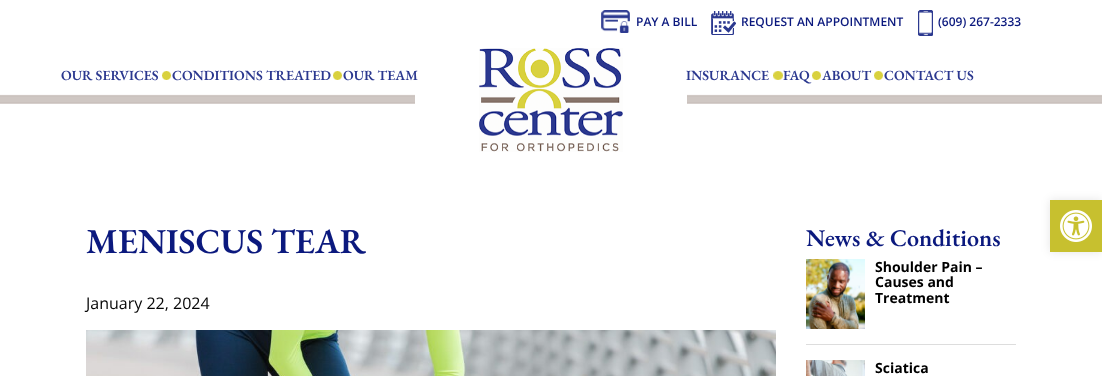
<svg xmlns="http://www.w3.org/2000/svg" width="1102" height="376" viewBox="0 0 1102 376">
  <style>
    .t1 { font: 600 12px Open Sans; fill: #0b197e; }
    .t2 { font: 600 14px EB Garamond; fill: #2b388f; }
    .t3 { font: 600 35px EB Garamond; fill: #0b197e; }
    .t4 { font: 16px Open Sans; fill: #060606; }
    .t5 { font: 600 24px EB Garamond; fill: #0b197e; }
    .t6 { font: bold 14px Open Sans; fill: #000; }
  </style>
  <rect width="100%" height="100%" fill="#fff"/>
  <image x="0" y="94" width="1102" height="10" href="images/1.png"/>
  <image x="601" y="10" width="29" height="23" href="images/2.png"/>
  <text x="636" y="26" class="t1">PAY A BILL</text>
  <image x="711" y="11" width="25" height="24" href="images/3.png"/>
  <text x="741" y="26" class="t1">REQUEST AN APPOINTMENT</text>
  <image x="918" y="10" width="15" height="26" href="images/4.png"/>
  <text x="938" y="26" class="t1">(609) 267-2333</text>
  <image x="479" y="48" width="144" height="104" href="images/5.png"/>
  <text x="61" y="80" class="t2">OUR SERVICES</text>
  <image x="162" y="71" width="9" height="9" href="images/6.png"/>
  <text x="172" y="80" class="t2">CONDITIONS TREATED</text>
  <image x="333" y="71" width="9" height="9" href="images/6.png"/>
  <text x="343" y="80" class="t2">OUR TEAM</text>
  <text x="686" y="80" class="t2">INSURANCE</text>
  <image x="773" y="71" width="10" height="9" href="images/7.png"/>
  <text x="783" y="80" class="t2">FAQ</text>
  <image x="812" y="71" width="9" height="9" href="images/6.png"/>
  <text x="822" y="80" class="t2">ABOUT</text>
  <image x="874" y="71" width="9" height="9" href="images/6.png"/>
  <text x="884" y="80" class="t2">CONTACT US</text>
  <text x="86" y="253" class="t3">MENISCUS TEAR</text>
  <text x="86" y="309" class="t4">January 22, 2024</text>
  <image x="86" y="330" width="690" height="46" href="images/8.png"/>
  <text x="806" y="246" class="t5">News &amp; Conditions</text>
  <rect x="806" y="344" width="210" height="1" fill="#ddd"/>
  <image x="806" y="259" width="59" height="70" href="images/9.png"/>
  <text x="875" y="272" class="t6">Shoulder Pain –</text>
  <text x="875" y="287" class="t6">Causes and</text>
  <text x="875" y="303" class="t6">Treatment</text>
  <image x="806" y="360" width="59" height="16" href="images/10.png"/>
  <text x="875" y="373" class="t6">Sciatica</text>
  <rect x="1050" y="200" width="52" height="52" fill="#0000001a" filter="blur(5px)"/>
  <rect x="1050" y="200" width="52" height="52" fill="#c7c02f"/>
  <image x="1060" y="210" width="32" height="32" href="images/11.png"/>
</svg>
